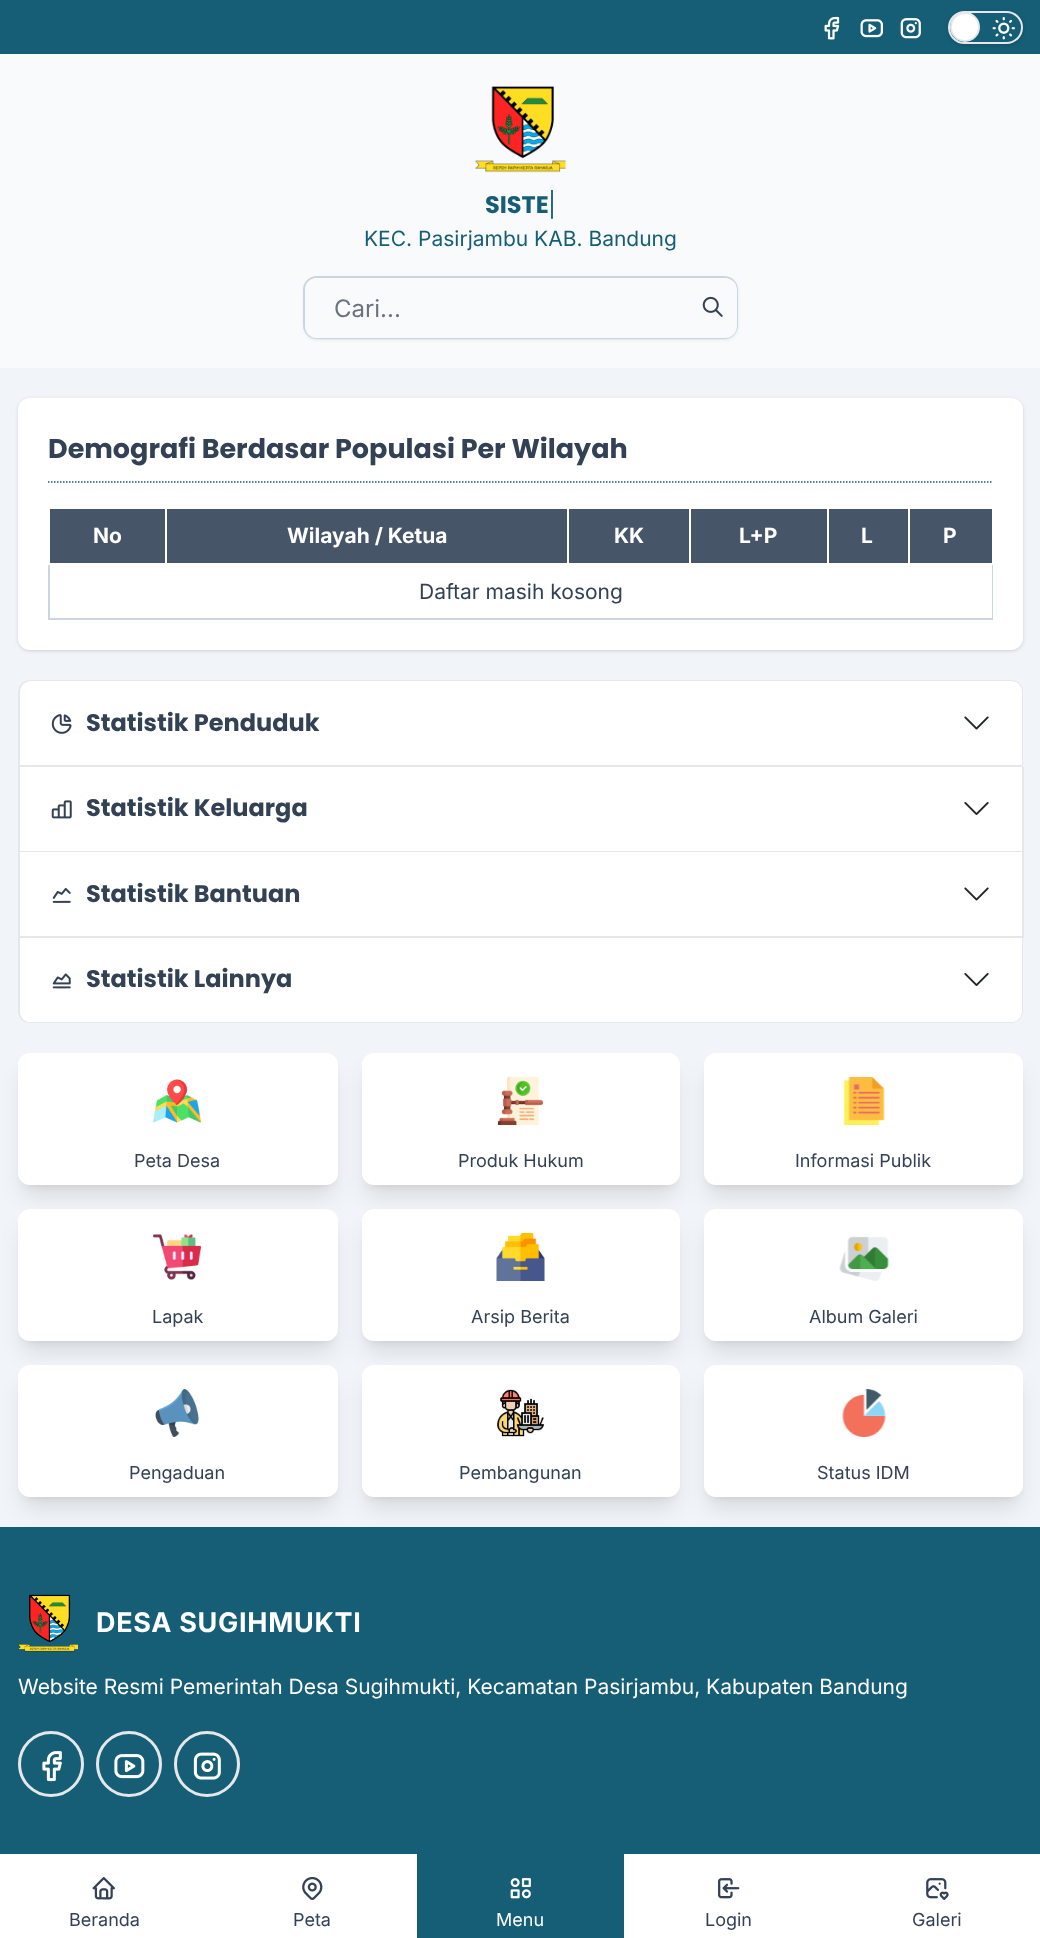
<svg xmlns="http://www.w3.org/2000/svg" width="1040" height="1938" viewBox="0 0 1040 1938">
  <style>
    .t1 { font: bold 24px Poppins; fill: #155e75; }
    .t2 { font: 24px Inter; fill: #155e75; }
    .t3 { font: 21px Inter; fill: #155e75; }
    .t4 { font: 24px Inter; fill: #6b7280; }
    .t5 { font: bold 27px Poppins; fill: #334155; }
    .t6 { font: bold 21px Inter; fill: #fff; }
    .t7 { font: 21px Inter; fill: #334155; }
    .t8 { font: bold 24px Poppins; fill: #334155; }
    .t9 { font: 18px Inter; fill: #334155; }
    .t10 { font: bold 27px Inter; letter-spacing: 0.7px; fill: #fff; }
    .t11 { font: 21px Inter; fill: #fff; }
    .t12 { font: 18px Inter; fill: #fff; }
  </style>
  <rect width="100%" height="100%" fill="#f1f5f9"/>
  <rect x="0" y="0" width="1040" height="54" fill="#155e75"/>
  <image x="824" y="16" width="16" height="24" href="images/1.png"/>
  <image x="860" y="19" width="23" height="19" href="images/2.png"/>
  <image x="900" y="18" width="21" height="21" href="images/3.png"/>
  <rect x="950" y="14" width="72" height="30" rx="15" fill="#0000001a" filter="blur(1.5px)"/>
  <rect x="948" y="12" width="75" height="33" rx="16.5" fill="#0000001a" filter="blur(2px)"/>
  <rect x="949" y="12" width="73" height="31" rx="15.5" fill="#155e75" stroke="#e5e7eb" stroke-width="2"/>
  <image x="977" y="32" width="2" height="3" href="images/4.png"/>
  <image x="992" y="17" width="23" height="23" href="images/5.png"/>
  <circle cx="965" cy="27" r="14" fill="#fff" stroke="#e5e7eb" stroke-width="2"/>
  <rect x="0" y="54" width="1040" height="314" fill="#f8fafc"/>
  <image x="475" y="86" width="91" height="87" href="images/6.png"/>
  <text x="485" y="213" class="t1">SISTE</text>
  <text x="548" y="213" class="t2">|</text>
  <text x="364" y="246" class="t3">KEC. Pasirjambu KAB. Bandung</text>
  <rect x="306" y="281" width="429" height="57" rx="11" fill="#0000001a" filter="blur(1.5px)"/>
  <rect x="305" y="279" width="432" height="60" rx="12" fill="#0000001a" filter="blur(2px)"/>
  <rect x="304" y="277" width="433" height="61" rx="13" fill="none" stroke="#cbd5e1" stroke-width="2"/>
  <rect x="305" y="278" width="432" height="60" rx="12" fill="#f8fafc"/>
  <path d="M317 278H689V338H317C310.5 338 305 332.5 305 326V290C305 283.5 310.5 278 317 278Z" fill="#f8fafc"/>
  <text x="334" y="317" class="t4">Cari...</text>
  <image x="702" y="296" width="21" height="21" href="images/7.png"/>
  <rect x="20" y="401" width="1002" height="249" rx="11" fill="#0000001a" filter="blur(1.5px)"/>
  <rect x="18" y="399" width="1005" height="252" rx="12" fill="#0000001a" filter="blur(2px)"/>
  <rect x="18" y="398" width="1005" height="252" rx="12" fill="#fff"/>
  <path d="M48 482H993" fill="none" stroke="#155e75" stroke-width="1.5" stroke-dasharray="1.5 1.5"/>
  <text x="48" y="458" class="t5">Demografi Berdasar Populasi Per Wilayah</text>
  <rect x="50" y="509" width="942" height="54" fill="#475569"/>
  <rect x="992" y="563" width="1" height="57" fill="#cbd5e1"/>
  <rect x="48" y="618" width="945" height="2" fill="#cbd5e1"/>
  <rect x="48" y="563" width="2" height="57" fill="#cbd5e1"/>
  <rect x="48" y="563" width="2" height="2" fill="#fff"/>
  <text x="93" y="543" class="t6">No</text>
  <rect x="165" y="507" width="2" height="57" fill="#fff"/>
  <text x="287" y="543" class="t6">Wilayah / Ketua</text>
  <rect x="567" y="507" width="2" height="57" fill="#fff"/>
  <text x="614" y="543" class="t6">KK</text>
  <rect x="689" y="507" width="2" height="57" fill="#fff"/>
  <text x="739" y="543" class="t6">L+P</text>
  <rect x="827" y="507" width="2" height="57" fill="#fff"/>
  <text x="861" y="543" class="t6">L</text>
  <rect x="992" y="563" width="1" height="2" fill="#fff"/>
  <rect x="908" y="507" width="2" height="57" fill="#fff"/>
  <text x="943" y="543" class="t6">P</text>
  <text x="419" y="599" class="t7">Daftar masih kosong</text>
  <path d="M30 681H1011C1017 681 1022 686 1022 692V766H19V692C19 686 24 681 30 681Z" fill="none" stroke="#e5e7eb" stroke-width="2"/>
  <path d="M31 681H1011C1017 681 1022 686 1022 692V765H20V692C20 686 25 681 31 681Z" fill="#fff"/>
  <image x="51" y="714" width="21" height="20" href="images/8.png"/>
  <text x="86" y="731" class="t8">Statistik Penduduk</text>
  <image x="964" y="716" width="25" height="14" href="images/9.png"/>
  <rect x="20" y="767" width="1002" height="84" fill="#fff"/>
  <rect x="1022" y="767" width="2" height="171" fill="#e5e7eb"/>
  <rect x="18" y="851" width="1005" height="1" fill="#e5e7eb"/>
  <rect x="18" y="767" width="2" height="85" fill="#e5e7eb"/>
  <image x="51" y="800" width="21" height="19" href="images/10.png"/>
  <text x="86" y="816" class="t8">Statistik Keluarga</text>
  <image x="964" y="802" width="25" height="13" href="images/11.png"/>
  <rect x="20" y="852" width="1002" height="84" fill="#fff"/>
  <rect x="18" y="936" width="1005" height="2" fill="#e5e7eb"/>
  <rect x="18" y="852" width="2" height="86" fill="#e5e7eb"/>
  <image x="52" y="887" width="19" height="16" href="images/12.png"/>
  <text x="86" y="902" class="t8">Statistik Bantuan</text>
  <image x="964" y="887" width="25" height="14" href="images/9.png"/>
  <path d="M18 938H1023V1011C1023 1017.5 1017.5 1023 1011 1023H30C23.5 1023 18 1017.5 18 1011Z" fill="#fff"/>
  <path d="M18 938H1023V1011C1023 1018 1018 1023 1011 1023H30C23 1023 18 1018 18 1011ZM20 938H1022V1011C1022 1017 1017 1022 1011 1022H30C24 1022 20 1017 20 1011Z" fill="#e5e7eb" fill-rule="evenodd"/>
  <path d="M20 938H1022V1011C1022 1017 1017 1022 1011 1022H31C25 1022 20 1017 20 1011Z" fill="#fff"/>
  <image x="52" y="973" width="19" height="16" href="images/13.png"/>
  <text x="86" y="987" class="t8">Statistik Lainnya</text>
  <image x="964" y="973" width="25" height="13" href="images/11.png"/>
  <rect x="24" y="1065" width="308" height="120" rx="6" fill="#0000001a" filter="blur(4.5px)"/>
  <rect x="23" y="1073" width="310" height="123" rx="8" fill="#0000001a" filter="blur(11px)"/>
  <rect x="18" y="1053" width="320" height="132" rx="12" fill="#fff"/>
  <image x="153" y="1079" width="48" height="44" href="images/14.png"/>
  <text x="134" y="1167" class="t9">Peta Desa</text>
  <rect x="368" y="1065" width="306" height="120" rx="6" fill="#0000001a" filter="blur(4.5px)"/>
  <rect x="366" y="1073" width="309" height="123" rx="8" fill="#0000001a" filter="blur(11px)"/>
  <rect x="362" y="1053" width="318" height="132" rx="12" fill="#fff"/>
  <image x="497" y="1077" width="46" height="48" href="images/15.png"/>
  <text x="458" y="1167" class="t9">Produk Hukum</text>
  <rect x="710" y="1065" width="307" height="120" rx="6" fill="#0000001a" filter="blur(4.5px)"/>
  <rect x="708" y="1073" width="311" height="123" rx="8" fill="#0000001a" filter="blur(11px)"/>
  <rect x="704" y="1053" width="319" height="132" rx="12" fill="#fff"/>
  <image x="843" y="1077" width="42" height="48" href="images/16.png"/>
  <text x="795" y="1167" class="t9">Informasi Publik</text>
  <rect x="24" y="1221" width="308" height="120" rx="6" fill="#0000001a" filter="blur(4.5px)"/>
  <rect x="23" y="1229" width="310" height="123" rx="8" fill="#0000001a" filter="blur(11px)"/>
  <rect x="18" y="1209" width="320" height="132" rx="12" fill="#fff"/>
  <image x="153" y="1234" width="48" height="46" href="images/17.png"/>
  <text x="152" y="1323" class="t9">Lapak</text>
  <rect x="368" y="1221" width="306" height="120" rx="6" fill="#0000001a" filter="blur(4.5px)"/>
  <rect x="366" y="1229" width="309" height="123" rx="8" fill="#0000001a" filter="blur(11px)"/>
  <rect x="362" y="1209" width="318" height="132" rx="12" fill="#fff"/>
  <image x="496" y="1233" width="49" height="48" href="images/18.png"/>
  <text x="471" y="1323" class="t9">Arsip Berita</text>
  <rect x="710" y="1221" width="307" height="120" rx="6" fill="#0000001a" filter="blur(4.5px)"/>
  <rect x="708" y="1229" width="311" height="123" rx="8" fill="#0000001a" filter="blur(11px)"/>
  <rect x="704" y="1209" width="319" height="132" rx="12" fill="#fff"/>
  <image x="839" y="1236" width="50" height="45" href="images/19.png"/>
  <text x="809" y="1323" class="t9">Album Galeri</text>
  <rect x="24" y="1377" width="308" height="120" rx="6" fill="#0000001a" filter="blur(4.5px)"/>
  <rect x="0" y="1527" width="1040" height="327" fill="#155e75"/>
  <rect x="23" y="1385" width="310" height="123" rx="8" fill="#0000001a" filter="blur(11px)"/>
  <rect x="18" y="1365" width="320" height="132" rx="12" fill="#fff"/>
  <image x="155" y="1389" width="44" height="48" href="images/20.png"/>
  <text x="129" y="1479" class="t9">Pengaduan</text>
  <rect x="368" y="1377" width="306" height="120" rx="6" fill="#0000001a" filter="blur(4.5px)"/>
  <rect x="366" y="1385" width="309" height="123" rx="8" fill="#0000001a" filter="blur(11px)"/>
  <rect x="362" y="1365" width="318" height="132" rx="12" fill="#fff"/>
  <image x="497" y="1389" width="48" height="48" href="images/21.png"/>
  <text x="459" y="1479" class="t9">Pembangunan</text>
  <rect x="710" y="1377" width="307" height="120" rx="6" fill="#0000001a" filter="blur(4.5px)"/>
  <rect x="708" y="1385" width="311" height="123" rx="8" fill="#0000001a" filter="blur(11px)"/>
  <rect x="704" y="1365" width="319" height="132" rx="12" fill="#fff"/>
  <image x="842" y="1389" width="44" height="48" href="images/22.png"/>
  <text x="817" y="1479" class="t9">Status IDM</text>
  <image x="18" y="1594" width="60" height="58" href="images/23.png"/>
  <text x="96" y="1632" class="t10">DESA SUGIHMUKTI</text>
  <text x="18" y="1694" class="t11">Website Resmi Pemerintah Desa Sugihmukti, Kecamatan Pasirjambu, Kabupaten Bandung</text>
  <circle cx="51" cy="1764" r="31.5" fill="none" stroke="#e5e7eb" stroke-width="3"/>
  <image x="42" y="1751" width="20" height="31" href="images/24.png"/>
  <circle cx="129" cy="1764" r="31.5" fill="none" stroke="#e5e7eb" stroke-width="3"/>
  <image x="114" y="1754" width="31" height="25" href="images/25.png"/>
  <circle cx="207" cy="1764" r="31.5" fill="none" stroke="#e5e7eb" stroke-width="3"/>
  <image x="193" y="1752" width="28" height="28" href="images/26.png"/>
  <rect x="0" y="1854" width="1040" height="84" fill="#fff"/>
  <image x="92" y="1877" width="23" height="23" href="images/27.png"/>
  <text x="69" y="1926" class="t9">Beranda</text>
  <image x="302" y="1877" width="21" height="23" href="images/28.png"/>
  <text x="293" y="1926" class="t9">Peta</text>
  <rect x="417" y="1854" width="207" height="84" fill="#155e75"/>
  <image x="510" y="1878" width="21" height="21" href="images/29.png"/>
  <text x="496" y="1926" class="t12">Menu</text>
  <image x="718" y="1878" width="22" height="21" href="images/30.png"/>
  <text x="705" y="1926" class="t9">Login</text>
  <image x="926" y="1878" width="23" height="22" href="images/31.png"/>
  <text x="912" y="1926" class="t9">Galeri</text>
</svg>
